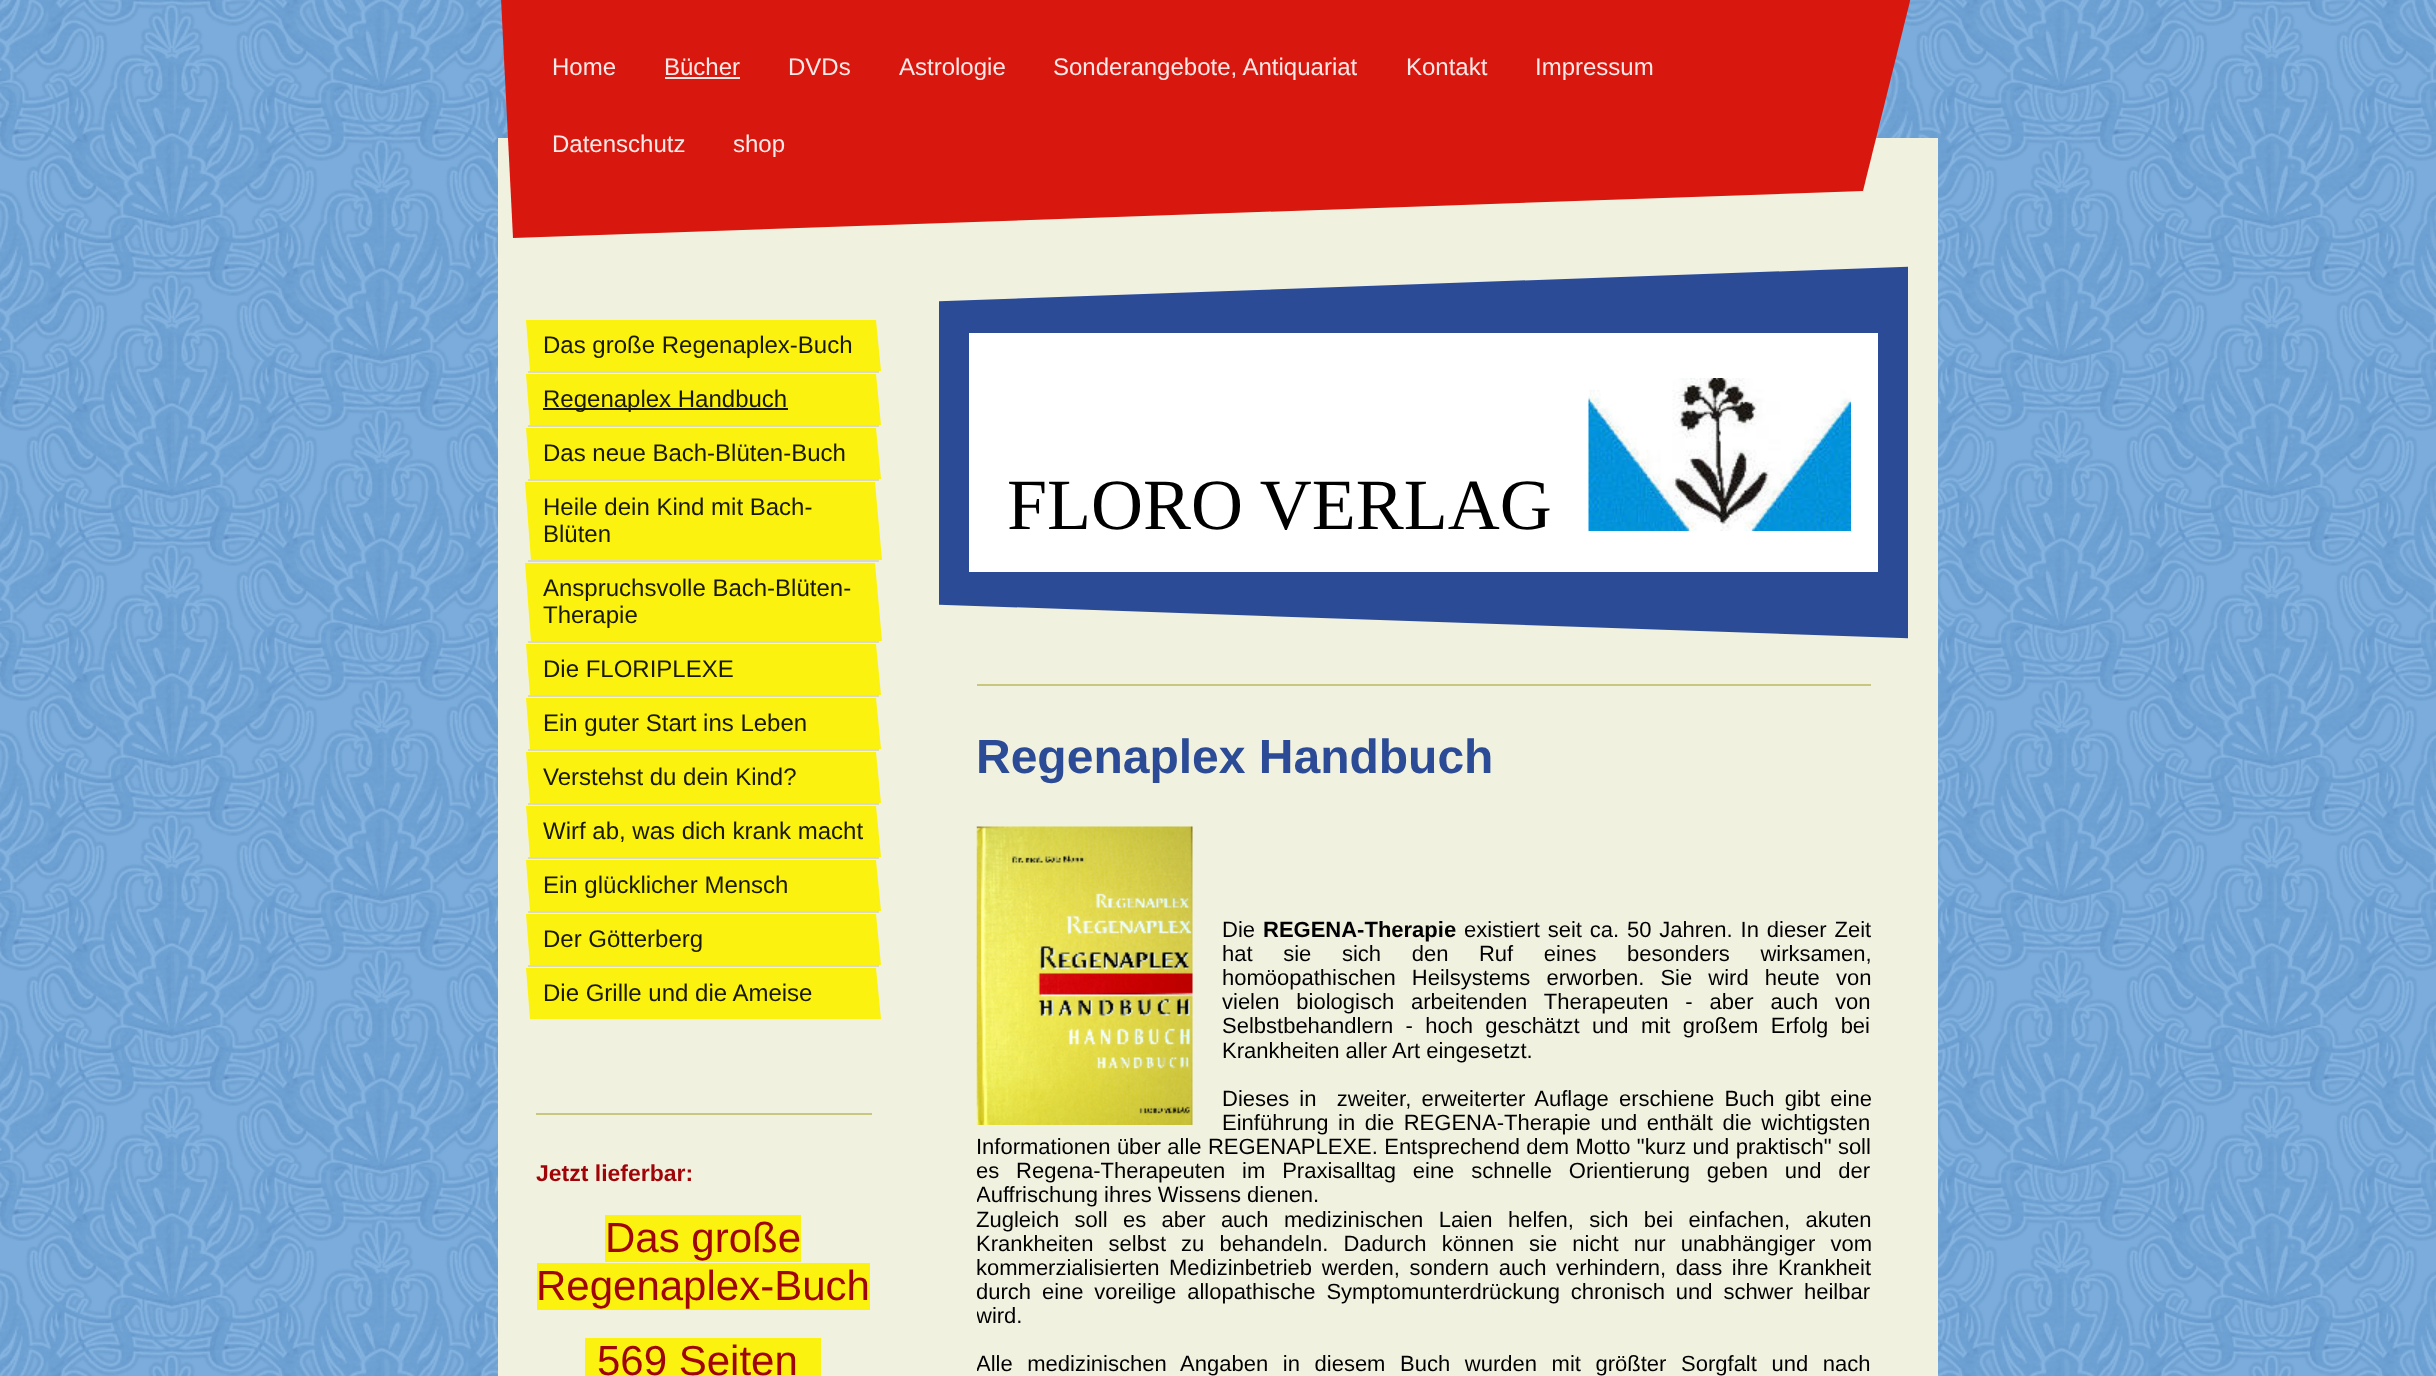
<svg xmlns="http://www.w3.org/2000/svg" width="2436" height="1376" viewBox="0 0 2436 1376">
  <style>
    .t1 { font: 24px Liberation Sans; fill: #fbe8e7; }
    .t2 { font: 24px Liberation Sans; fill: #191802; }
    .t3 { font: bold 23px Liberation Sans; fill: #9f0408; }
    .t4 { font: 42px Liberation Sans; fill: #9f0408; }
    .t5 { font: 72px Liberation Serif; fill: #000; }
    .t6 { font: bold 48px Liberation Sans; fill: #2c4b97; }
    .t7 { font: 22px Liberation Sans; fill: #000; }
    .t8 { font: bold 22px Liberation Sans; fill: #000; }
  </style>
  <defs>
    <clipPath id="clip1"><rect x="939" y="258" width="969" height="389"/></clipPath>
    <clipPath id="clip2"><rect x="977" y="821" width="894" height="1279"/></clipPath>
  </defs>
  <rect width="100%" height="100%" fill="#fff"/>
  <image x="0" y="0" width="2436" height="1376" href="images/1.png"/>
  <rect x="498" y="138" width="1440" height="1238" fill="#f1f1df"/>
  <path d="M498-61L1938-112L1863 191L513 238Z" fill="#d8180e"/>
  <text x="552" y="75" class="t1">Home</text>
  <text x="664" y="75" class="t1">Bücher</text>
  <rect x="665" y="77" width="75" height="2" fill="#fbe8e7"/>
  <text x="788" y="75" class="t1">DVDs</text>
  <text x="899" y="75" class="t1">Astrologie</text>
  <text x="1053" y="75" class="t1">Sonderangebote, Antiquariat</text>
  <text x="1406" y="75" class="t1">Kontakt</text>
  <text x="1535" y="75" class="t1">Impressum</text>
  <text x="552" y="152" class="t1">Datenschutz</text>
  <text x="733" y="152" class="t1">shop</text>
  <rect x="528" y="371" width="351" height="2" fill="#d9d9c9"/>
  <path d="M526 320H876L881 371H530Z" fill="#fbf30f"/>
  <text x="543" y="353" class="t2">Das große Regenaplex-Buch</text>
  <rect x="528" y="425" width="351" height="2" fill="#d9d9c9"/>
  <path d="M526 374H876L881 425H530Z" fill="#fbf30f"/>
  <rect x="543" y="408" width="245" height="2" fill="#191802"/>
  <text x="543" y="407" class="t2">Regenaplex Handbuch</text>
  <rect x="528" y="479" width="351" height="2" fill="#d9d9c9"/>
  <path d="M526 428H876L881 479H530Z" fill="#fbf30f"/>
  <text x="543" y="461" class="t2">Das neue Bach-Blüten-Buch</text>
  <rect x="528" y="560" width="351" height="2" fill="#d9d9c9"/>
  <path d="M525 482H875L882 560H531Z" fill="#fbf30f"/>
  <text x="543" y="515" class="t2">Heile dein Kind mit Bach-</text>
  <text x="543" y="542" class="t2">Blüten</text>
  <rect x="528" y="641" width="351" height="2" fill="#d9d9c9"/>
  <path d="M525 563H875L882 641H531Z" fill="#fbf30f"/>
  <text x="543" y="596" class="t2">Anspruchsvolle Bach-Blüten-</text>
  <text x="543" y="623" class="t2">Therapie</text>
  <rect x="528" y="695" width="351" height="2" fill="#d9d9c9"/>
  <path d="M526 644H876L881 695H530Z" fill="#fbf30f"/>
  <text x="543" y="677" class="t2">Die FLORIPLEXE</text>
  <rect x="528" y="749" width="351" height="2" fill="#d9d9c9"/>
  <path d="M526 698H876L881 749H530Z" fill="#fbf30f"/>
  <text x="543" y="731" class="t2">Ein guter Start ins Leben</text>
  <rect x="528" y="803" width="351" height="2" fill="#d9d9c9"/>
  <path d="M526 752H876L881 803H530Z" fill="#fbf30f"/>
  <text x="543" y="785" class="t2">Verstehst du dein Kind?</text>
  <rect x="528" y="857" width="351" height="2" fill="#d9d9c9"/>
  <path d="M526 806H876L881 857H530Z" fill="#fbf30f"/>
  <text x="543" y="839" class="t2">Wirf ab, was dich krank macht</text>
  <rect x="528" y="911" width="351" height="2" fill="#d9d9c9"/>
  <path d="M526 860H876L881 911H530Z" fill="#fbf30f"/>
  <text x="543" y="893" class="t2">Ein glücklicher Mensch</text>
  <rect x="528" y="965" width="351" height="2" fill="#d9d9c9"/>
  <path d="M526 914H876L881 965H530Z" fill="#fbf30f"/>
  <text x="543" y="947" class="t2">Der Götterberg</text>
  <path d="M526 968H876L881 1019H530Z" fill="#fbf30f"/>
  <text x="543" y="1001" class="t2">Die Grille und die Ameise</text>
  <rect x="536" y="1113" width="336" height="2" fill="#c7c77f"/>
  <text x="536" y="1181" class="t3">Jetzt lieferbar:</text>
  <rect x="605" y="1215" width="196" height="47" fill="#fbf30f"/>
  <text x="605" y="1252" class="t4">Das große</text>
  <rect x="537" y="1263" width="333" height="47" fill="#fbf30f"/>
  <text x="536" y="1300" class="t4">Regenaplex-Buch</text>
  <rect x="585" y="1338" width="236" height="38" fill="#fbf30f"/>
  <text x="597" y="1375" class="t4">569 Seiten</text>
  <rect x="939" y="266" width="969" height="373" fill="#2c4b97"/>
  <g clip-path="url(#clip1)">
    <path d="M889 237L1955 199L1957 265L891 303Z" fill="#f1f1df"/>
  </g>
  <rect x="969" y="333" width="909" height="239" fill="#fff"/>
  <text x="1007" y="529" class="t5">FLORO VERLAG</text>
  <image x="1588" y="378" width="263" height="153" href="images/2.png"/>
  <g clip-path="url(#clip1)">
    <path d="M891 603L1957 640L1955 706L889 669Z" fill="#f1f1df"/>
  </g>
  <rect x="977" y="684" width="894" height="2" fill="#c7c77f"/>
  <text x="976" y="773" class="t6">Regenaplex Handbuch</text>
  <image x="976" y="826" width="217" height="299" href="images/3.png"/>
  <text x="1222" y="937" class="t7">Die</text>
  <text x="1263" y="937" class="t8">REGENA-Therapie</text>
  <text x="1464" y="937" word-spacing="1.75" class="t7">existiert seit ca. 50 Jahren. In dieser Zeit</text>
  <text x="1222" y="961" word-spacing="24.5" class="t7">hat sie sich den Ruf eines besonders wirksamen,</text>
  <text x="1222" y="985" word-spacing="10" class="t7">homöopathischen Heilsystems erworben. Sie wird heute von</text>
  <text x="1222" y="1009" word-spacing="10.75" class="t7">vielen biologisch arbeitenden Therapeuten - aber auch von</text>
  <text x="1222" y="1033" word-spacing="6.25" class="t7">Selbstbehandlern - hoch geschätzt und mit großem Erfolg bei</text>
  <text x="1222" y="1058" class="t7">Krankheiten aller Art eingesetzt.</text>
  <text x="1222" y="1106" word-spacing="4" class="t7" xml:space="preserve">Dieses in  zweiter, erweiterter Auflage erschiene Buch gibt eine</text>
  <text x="1222" y="1130" word-spacing="3.5" class="t7">Einführung in die REGENA-Therapie und enthält die wichtigsten</text>
  <text x="976" y="1154" word-spacing="0.25" class="t7">Informationen über alle REGENAPLEXE. Entsprechend dem Motto "kurz und praktisch" soll</text>
  <text x="976" y="1178" word-spacing="10.75" class="t7">es Regena-Therapeuten im Praxisalltag eine schnelle Orientierung geben und der</text>
  <g clip-path="url(#clip2)">
    <text x="976" y="1202" class="t7">Auffrischung ihres Wissens dienen.</text>
  </g>
  <text x="976" y="1227" word-spacing="9.25" class="t7">Zugleich soll es aber auch medizinischen Laien helfen, sich bei einfachen, akuten</text>
  <text x="976" y="1251" word-spacing="9" class="t7">Krankheiten selbst zu behandeln. Dadurch können sie nicht nur unabhängiger vom</text>
  <text x="976" y="1275" word-spacing="3.5" class="t7">kommerzialisierten Medizinbetrieb werden, sondern auch verhindern, dass ihre Krankheit</text>
  <text x="976" y="1299" word-spacing="4.75" class="t7">durch eine voreilige allopathische Symptomunterdrückung chronisch und schwer heilbar</text>
  <g clip-path="url(#clip2)">
    <text x="976" y="1323" class="t7">wird.</text>
    <text x="976" y="1371" word-spacing="8.5" class="t7">Alle medizinischen Angaben in diesem Buch wurden mit größter Sorgfalt und nach</text>
  </g>
</svg>
